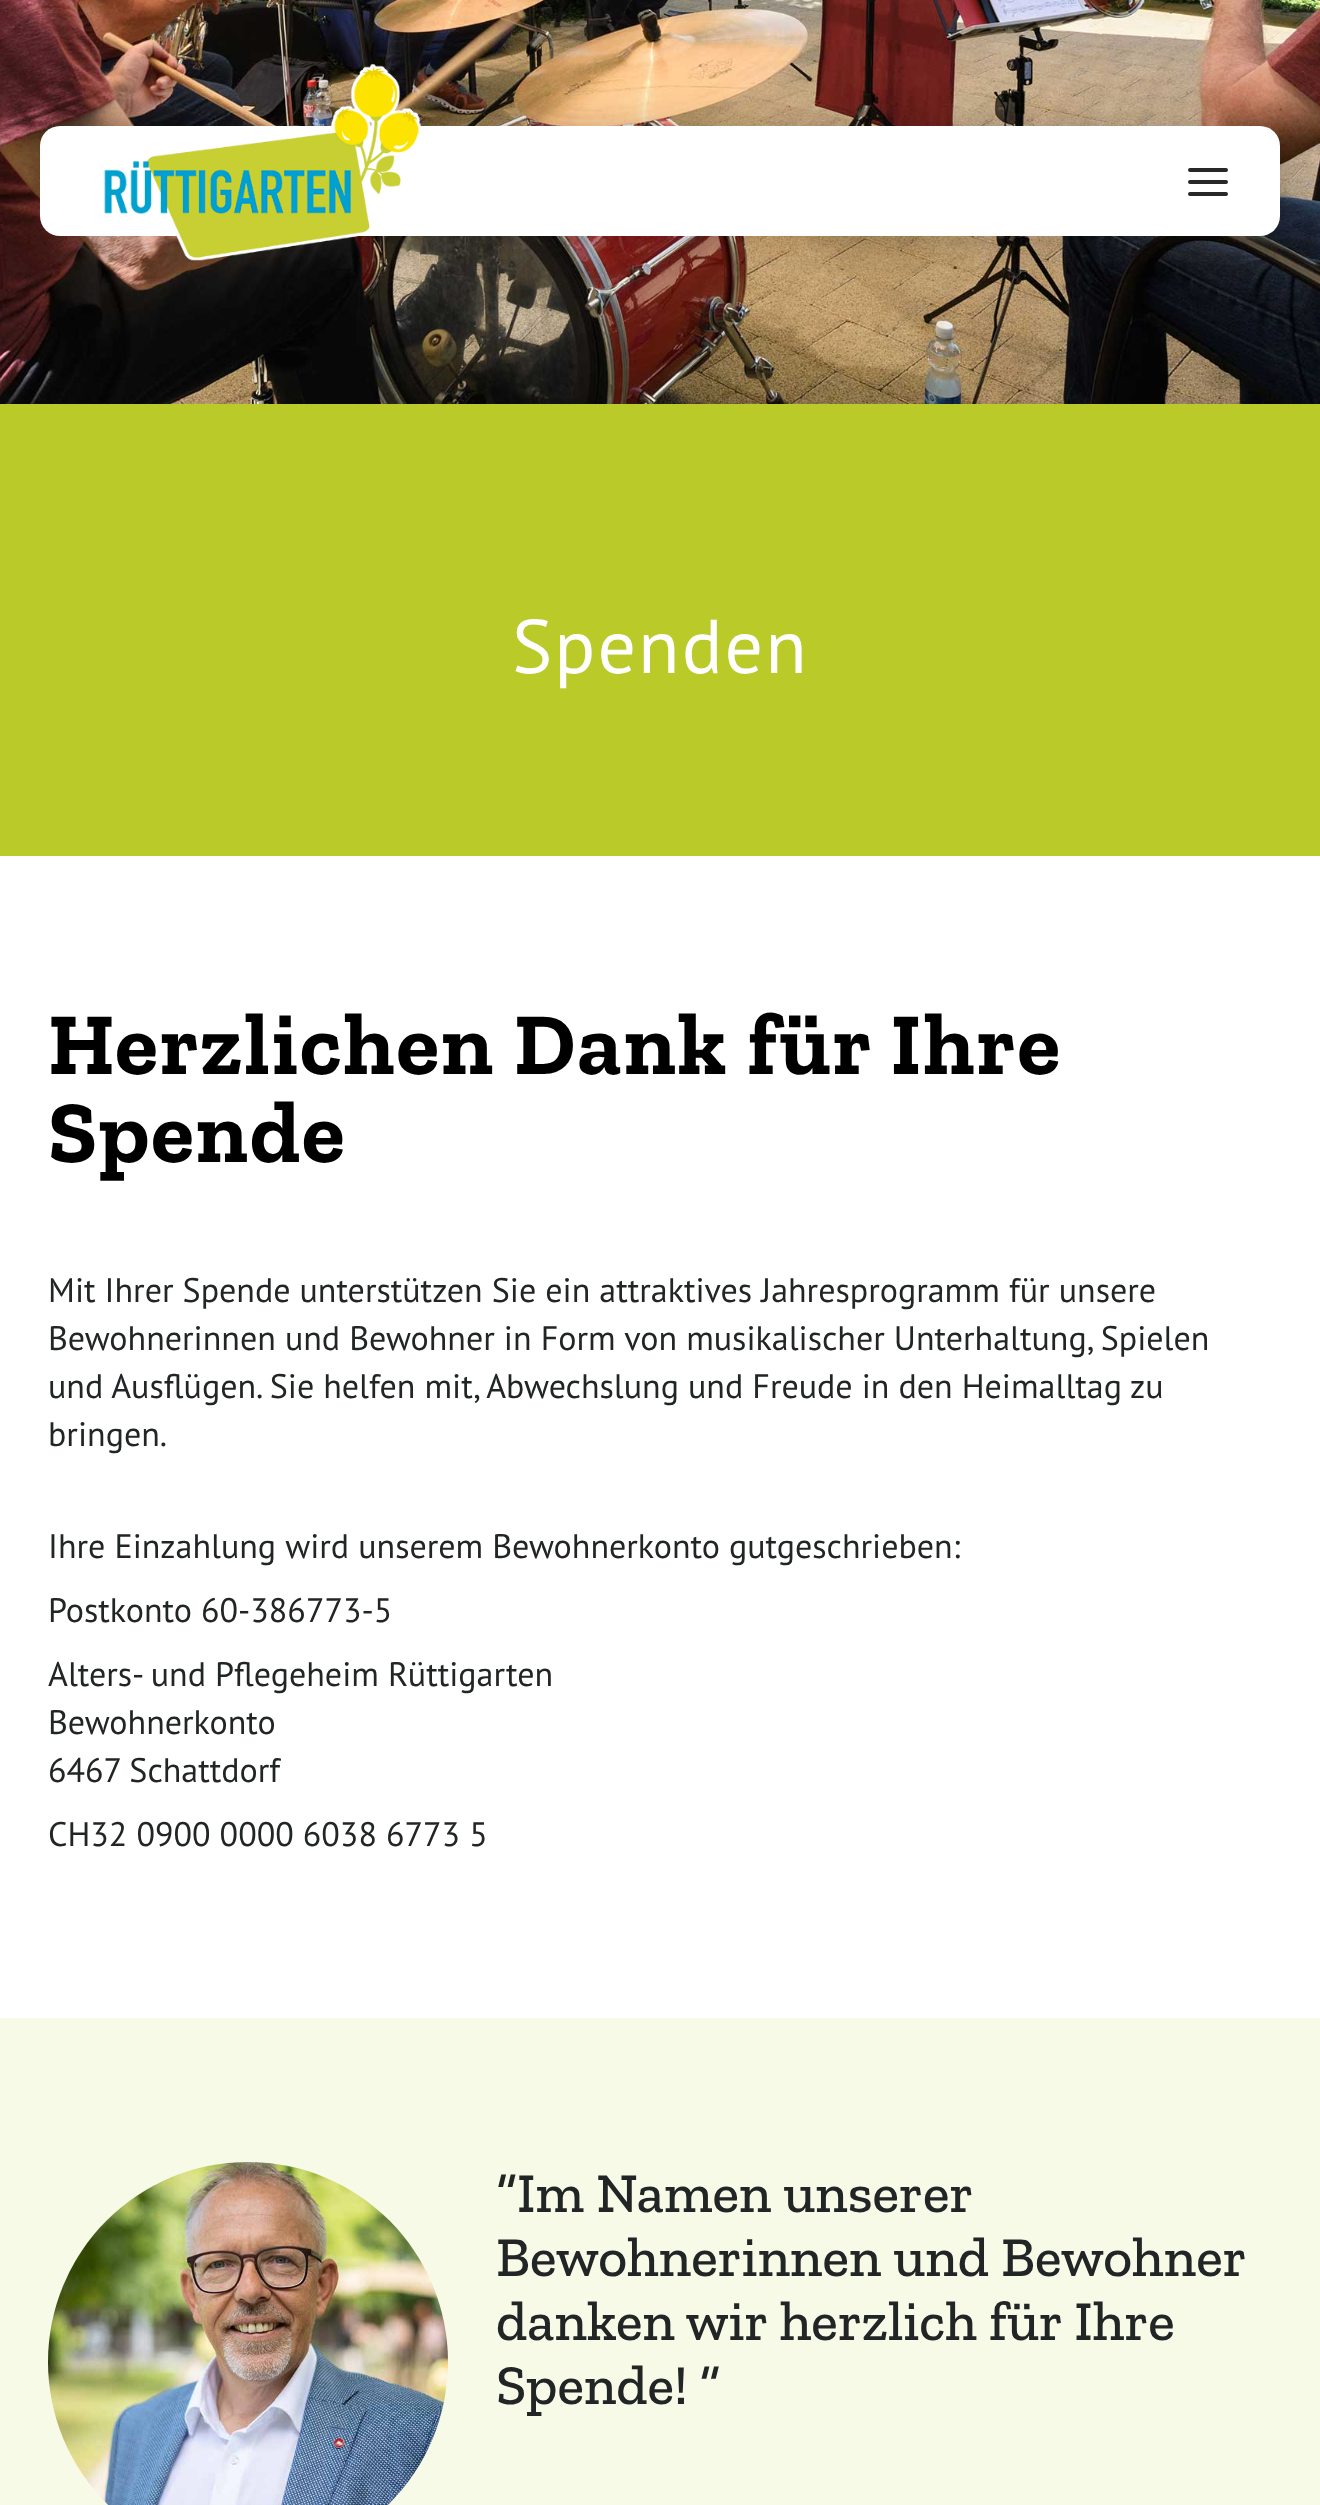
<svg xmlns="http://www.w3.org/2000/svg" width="1320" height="2505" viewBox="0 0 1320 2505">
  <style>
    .t1 { font: 76px PT Sans; letter-spacing: 2px; fill: #fff; }
    .t2 { font: bold 88px Zilla Slab; letter-spacing: 2px; fill: #000; }
    .t3 { font: 34px PT Sans; fill: #222525; }
    .t4 { font: 500 56px Zilla Slab; fill: #222525; }
  </style>
  <rect width="100%" height="100%" fill="#fff"/>
  <image x="0" y="0" width="1320" height="404" href="images/2.png"/>
  <rect x="42" y="128" width="1240" height="110" rx="20" fill="#00000030" filter="blur(19px)"/>
  <rect x="40" y="126" width="1240" height="110" rx="20" fill="#fff"/>
  <image x="104" y="64" width="318" height="197" href="images/1.png"/>
  <path d="M1190 182H1226M1190 170H1226M1190 194H1226" fill="none" stroke="#272929" stroke-width="4" stroke-linecap="round" stroke-linejoin="round"/>
  <rect x="0" y="404" width="1320" height="452" fill="#baca28"/>
  <text x="512" y="673" class="t1">Spenden</text>
  <text x="48" y="1074" class="t2">Herzlichen Dank für Ihre</text>
  <text x="48" y="1162" class="t2">Spende</text>
  <text x="48" y="1302" class="t3">Mit Ihrer Spende unterstützen Sie ein attraktives Jahresprogramm für unsere</text>
  <text x="48" y="1350" class="t3">Bewohnerinnen und Bewohner in Form von musikalischer Unterhaltung, Spielen</text>
  <text x="48" y="1398" class="t3">und Ausflügen. Sie helfen mit, Abwechslung und Freude in den Heimalltag zu</text>
  <text x="48" y="1446" class="t3">bringen.</text>
  <text x="48" y="1558" class="t3">Ihre Einzahlung wird unserem Bewohnerkonto gutgeschrieben:</text>
  <text x="48" y="1622" class="t3">Postkonto 60-386773-5</text>
  <text x="48" y="1686" class="t3">Alters- und Pflegeheim Rüttigarten</text>
  <text x="48" y="1734" class="t3">Bewohnerkonto</text>
  <text x="48" y="1782" class="t3">6467 Schattdorf</text>
  <text x="48" y="1846" class="t3">CH32 0900 0000 6038 6773 5</text>
  <rect x="0" y="2018" width="1320" height="487" fill="#f8fae8"/>
  <image x="48" y="2162" width="400" height="343" href="images/3.png"/>
  <text x="496" y="2212" class="t4">“Im Namen unserer</text>
  <text x="496" y="2276" class="t4">Bewohnerinnen und Bewohner</text>
  <text x="496" y="2340" class="t4">danken wir herzlich für Ihre</text>
  <text x="496" y="2404" class="t4">Spende! ”</text>
</svg>
